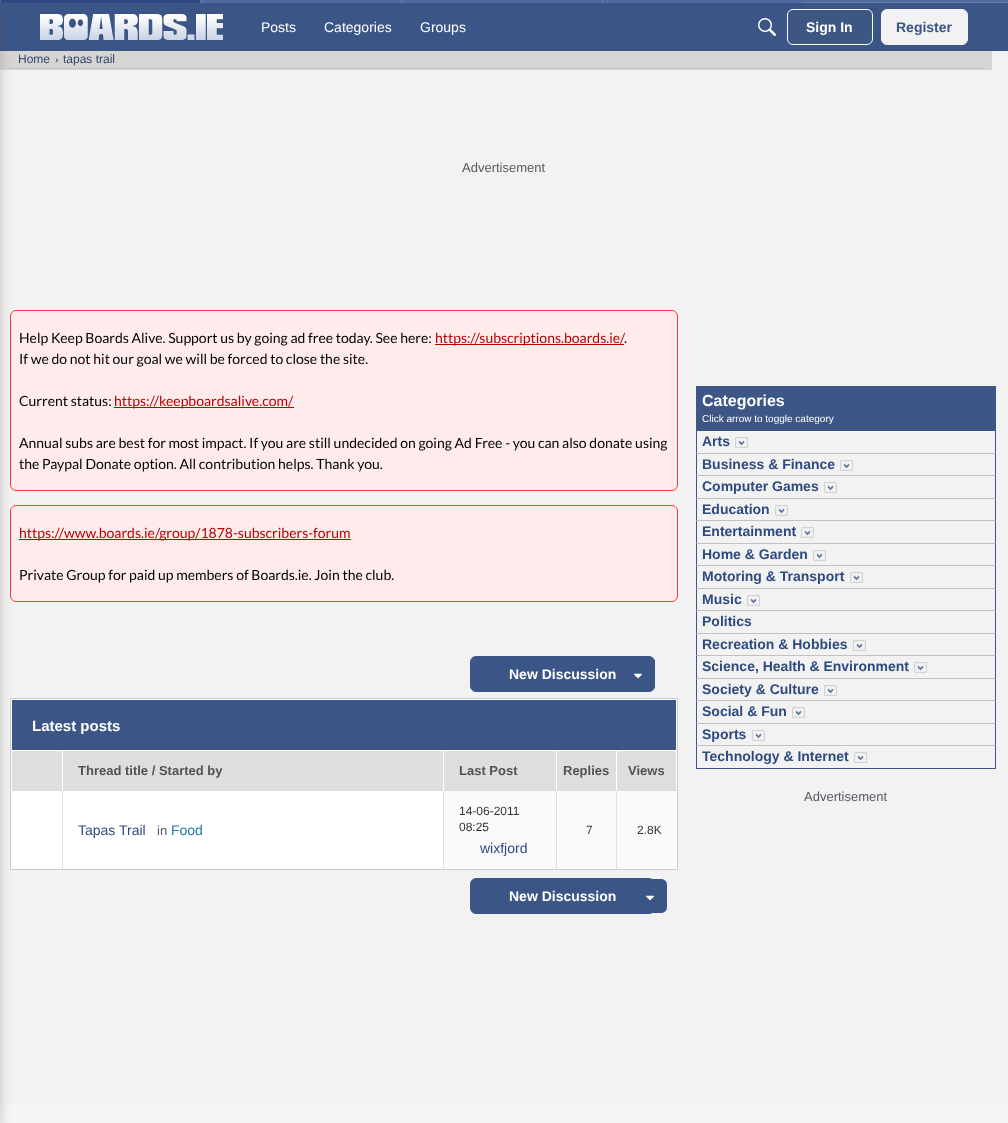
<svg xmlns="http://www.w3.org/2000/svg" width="1008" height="1123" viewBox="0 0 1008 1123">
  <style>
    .t1 { font: 14px Liberation Sans; fill: #fff; }
    .t2 { font: bold 14px Liberation Sans; fill: #fff; }
    .t3 { font: bold 14px Liberation Sans; fill: #3b5586; }
    .t4 { font: 12px Liberation Sans; fill: #30456d; }
    .t5 { font: 10px Liberation Sans; fill: #282828; }
    .t6 { font: 13px Liberation Sans; fill: #555a62; }
    .t7 { font: 14px Lato; fill: #000; }
    .t8 { font: 14px Lato; fill: #b30500; }
    .t9 { font: bold 15px Liberation Sans; fill: #fff; }
    .t10 { font: bold 13px Liberation Sans; fill: #525252; }
    .t11 { font: 14px Liberation Sans; fill: #2e4a80; }
    .t12 { font: 14px Liberation Sans; fill: #1e79a7; }
    .t13 { font: 12px Liberation Sans; fill: #333; }
    .t14 { font: bold 16px Liberation Sans; fill: #fff; }
    .t15 { font: 10px Liberation Sans; fill: #fff; }
    .t16 { font: bold 14px Liberation Sans; fill: #2e4a80; }
  </style>
  <rect width="100%" height="100%" fill="#f2f2f2"/>
  <rect x="802" y="0" width="206" height="2" fill="#4f6a9f"/>
  <rect x="802" y="2" width="206" height="1" fill="#637faf"/>
  <rect x="0" y="0" width="802" height="3" fill="#4f6a9f"/>
  <rect x="201" y="0" width="1" height="3" fill="#637faf"/>
  <rect x="1" y="0" width="199" height="3" fill="#2e4a80"/>
  <rect x="401" y="0" width="1" height="3" fill="#637faf"/>
  <rect x="602" y="0" width="1" height="3" fill="#637faf"/>
  <rect x="0" y="3" width="1008" height="48" fill="#3b5586"/>
  <rect x="0" y="51" width="992" height="19" fill="#d6d5d3"/>
  <rect x="8" y="68" width="976" height="1" fill="#c5c5c5"/>
  <rect x="10.5" y="310.5" width="667" height="180" rx="5.5" fill="#ffebeb" stroke="#ff3933"/>
  <rect x="10.5" y="505.5" width="667" height="96" rx="5.5" fill="#ffebeb" stroke="#ff3933"/>
  <rect x="10.5" y="698.5" width="667" height="171" fill="#fff" stroke="#ccc"/>
  <rect x="12" y="700" width="664" height="50" fill="#3b5586"/>
  <rect x="12" y="751" width="50" height="40" fill="#dedede"/>
  <rect x="0" y="1103" width="1008" height="20" fill="#f5f5f6"/>
  <rect x="-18" y="6" width="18" height="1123" fill="#6b52524d" filter="blur(6px)"/>
  <image x="40" y="14" width="183" height="26" href="images/1.png"/>
  <text x="261" y="32" class="t1">Posts</text>
  <text x="324" y="32" class="t1">Categories</text>
  <text x="420" y="32" class="t1">Groups</text>
  <image x="758" y="18" width="18" height="18" href="images/2.png"/>
  <rect x="787.5" y="9.5" width="85" height="35" rx="5.5" fill="#3e5682" stroke="#fff"/>
  <text x="806" y="32" class="t2">Sign In</text>
  <rect x="881.5" y="9.5" width="86" height="35" rx="5.5" fill="#f2f2f2" stroke="#f2f2f2"/>
  <text x="896" y="32" class="t3">Register</text>
  <text x="18" y="63" class="t4">Home</text>
  <text x="55" y="63" class="t5">›</text>
  <text x="63" y="63" class="t4">tapas trail</text>
  <text x="462" y="172" class="t6">Advertisement</text>
  <text x="19" y="343" class="t7">Help Keep Boards Alive. Support us by going ad free today. See here:</text>
  <rect x="435" y="344" width="189" height="1" fill="#b30500"/>
  <text x="435" y="343" class="t8">https://subscriptions.boards.ie/</text>
  <text x="624" y="343" class="t7">.</text>
  <text x="19" y="364" class="t7">If we do not hit our goal we will be forced to close the site.</text>
  <text x="19" y="406" class="t7">Current status:</text>
  <rect x="114" y="407" width="180" height="1" fill="#b30500"/>
  <text x="114" y="406" class="t8">https://keepboardsalive.com/</text>
  <text x="19" y="448" class="t7">Annual subs are best for most impact. If you are still undecided on going Ad Free - you can also donate using</text>
  <text x="19" y="469" class="t7">the Paypal Donate option. All contribution helps. Thank you.</text>
  <rect x="19" y="539" width="332" height="1" fill="#b30500"/>
  <text x="19" y="538" class="t8">https://www.boards.ie/group/1878-subscribers-forum</text>
  <text x="19" y="580" class="t7">Private Group for paid up members of Boards.ie. Join the club.</text>
  <rect x="470.5" y="656.5" width="184" height="35" rx="5.5" fill="#3b5586" stroke="#3b5586"/>
  <text x="509" y="679" class="t2">New Discussion</text>
  <path d="M621 657H649C652.5 657 655 659.5 655 663V685C655 688.5 652.5 691 649 691H621Z" fill="#3b5586"/>
  <image x="634" y="673" width="8" height="6" href="images/3.png"/>
  <text x="32" y="731" class="t9">Latest posts</text>
  <rect x="63" y="751" width="380" height="40" fill="#dedede"/>
  <rect x="62" y="790" width="1" height="79" fill="#dedede"/>
  <rect x="62" y="790" width="1" height="1" fill="#fff"/>
  <text x="78" y="775" class="t10">Thread title / Started by</text>
  <rect x="444" y="751" width="112" height="40" fill="#dedede"/>
  <rect x="443" y="790" width="1" height="79" fill="#dedede"/>
  <rect x="443" y="790" width="1" height="1" fill="#fff"/>
  <text x="459" y="775" class="t10">Last Post</text>
  <rect x="557" y="751" width="59" height="40" fill="#dedede"/>
  <rect x="556" y="790" width="1" height="79" fill="#dedede"/>
  <rect x="556" y="790" width="1" height="1" fill="#fff"/>
  <text x="563" y="775" class="t10">Replies</text>
  <rect x="617" y="751" width="59" height="39" fill="#dedede"/>
  <rect x="616" y="790" width="61" height="1" fill="#dedede"/>
  <rect x="616" y="790" width="1" height="79" fill="#dedede"/>
  <rect x="616" y="790" width="1" height="1" fill="#fff"/>
  <text x="628" y="775" class="t10">Views</text>
  <text x="78" y="835" class="t11">Tapas Trail</text>
  <text x="157" y="835" class="t6">in</text>
  <text x="171" y="835" class="t12">Food</text>
  <rect x="444" y="791" width="112" height="77" fill="#fafafa"/>
  <text x="459" y="815" class="t13">14-06-2011</text>
  <text x="459" y="831" class="t13">08:25</text>
  <text x="480" y="853" class="t11">wixfjord</text>
  <rect x="557" y="791" width="59" height="77" fill="#fafafa"/>
  <text x="586" y="834" class="t13">7</text>
  <rect x="617" y="791" width="59" height="77" fill="#fafafa"/>
  <text x="637" y="834" class="t13">2.8K</text>
  <rect x="470.5" y="878.5" width="184" height="35" rx="5.5" fill="#3b5586" stroke="#3b5586"/>
  <text x="509" y="901" class="t2">New Discussion</text>
  <path d="M633 879H661C664.5 879 667 881.5 667 885V907C667 910.5 664.5 913 661 913H633Z" fill="#3b5586"/>
  <image x="646" y="895" width="8" height="6" href="images/3.png"/>
  <path d="M996 386V454L995 453V386Z" fill="#3d5686"/>
  <path d="M996 454H696L697 453H995Z" fill="#00000033"/>
  <path d="M696 454V386H697V453Z" fill="#3d5686"/>
  <rect x="697" y="386" width="298" height="45" fill="#3d5686"/>
  <text x="702" y="406" class="t14">Categories</text>
  <text x="702" y="422" class="t15">Click arrow to toggle category</text>
  <text x="702" y="446" class="t16">Arts</text>
  <image x="735" y="437" width="13" height="11" href="images/4.png"/>
  <path d="M996 454V476L995 475V454Z" fill="#3d5686"/>
  <path d="M996 476H696L697 475H995Z" fill="#00000033"/>
  <path d="M696 476V454H697V475Z" fill="#3d5686"/>
  <text x="702" y="469" class="t16">Business &amp; Finance</text>
  <image x="840" y="460" width="13" height="11" href="images/4.png"/>
  <path d="M996 476V499L995 498V476Z" fill="#3d5686"/>
  <path d="M996 499H696L697 498H995Z" fill="#00000033"/>
  <path d="M696 499V476H697V498Z" fill="#3d5686"/>
  <text x="702" y="491" class="t16">Computer Games</text>
  <image x="824" y="482" width="13" height="11" href="images/4.png"/>
  <path d="M996 499V521L995 520V499Z" fill="#3d5686"/>
  <path d="M996 521H696L697 520H995Z" fill="#00000033"/>
  <path d="M696 521V499H697V520Z" fill="#3d5686"/>
  <text x="702" y="514" class="t16">Education</text>
  <image x="775" y="505" width="13" height="11" href="images/4.png"/>
  <path d="M996 521V544L995 543V521Z" fill="#3d5686"/>
  <path d="M996 544H696L697 543H995Z" fill="#00000033"/>
  <path d="M696 544V521H697V543Z" fill="#3d5686"/>
  <text x="702" y="536" class="t16">Entertainment</text>
  <image x="801" y="527" width="13" height="11" href="images/4.png"/>
  <path d="M996 544V566L995 565V544Z" fill="#3d5686"/>
  <path d="M996 566H696L697 565H995Z" fill="#00000033"/>
  <path d="M696 566V544H697V565Z" fill="#3d5686"/>
  <text x="702" y="559" class="t16">Home &amp; Garden</text>
  <image x="813" y="550" width="13" height="11" href="images/4.png"/>
  <path d="M996 566V589L995 588V566Z" fill="#3d5686"/>
  <path d="M996 589H696L697 588H995Z" fill="#00000033"/>
  <path d="M696 589V566H697V588Z" fill="#3d5686"/>
  <text x="702" y="581" class="t16">Motoring &amp; Transport</text>
  <image x="850" y="572" width="13" height="11" href="images/4.png"/>
  <path d="M996 589V611L995 610V589Z" fill="#3d5686"/>
  <path d="M996 611H696L697 610H995Z" fill="#00000033"/>
  <path d="M696 611V589H697V610Z" fill="#3d5686"/>
  <text x="702" y="604" class="t16">Music</text>
  <image x="747" y="595" width="13" height="11" href="images/4.png"/>
  <path d="M996 611V634L995 633V611Z" fill="#3d5686"/>
  <path d="M996 634H696L697 633H995Z" fill="#00000033"/>
  <path d="M696 634V611H697V633Z" fill="#3d5686"/>
  <text x="702" y="626" class="t16">Politics</text>
  <path d="M996 634V656L995 655V634Z" fill="#3d5686"/>
  <path d="M996 656H696L697 655H995Z" fill="#00000033"/>
  <path d="M696 656V634H697V655Z" fill="#3d5686"/>
  <text x="702" y="649" class="t16">Recreation &amp; Hobbies</text>
  <image x="853" y="640" width="13" height="11" href="images/4.png"/>
  <path d="M996 656V679L995 678V656Z" fill="#3d5686"/>
  <path d="M996 679H696L697 678H995Z" fill="#00000033"/>
  <path d="M696 679V656H697V678Z" fill="#3d5686"/>
  <text x="702" y="671" class="t16">Science, Health &amp; Environment</text>
  <image x="914" y="662" width="13" height="11" href="images/4.png"/>
  <path d="M996 679V701L995 700V679Z" fill="#3d5686"/>
  <path d="M996 701H696L697 700H995Z" fill="#00000033"/>
  <path d="M696 701V679H697V700Z" fill="#3d5686"/>
  <text x="702" y="694" class="t16">Society &amp; Culture</text>
  <image x="824" y="685" width="13" height="11" href="images/4.png"/>
  <path d="M996 701V724L995 723V701Z" fill="#3d5686"/>
  <path d="M996 724H696L697 723H995Z" fill="#00000033"/>
  <path d="M696 724V701H697V723Z" fill="#3d5686"/>
  <text x="702" y="716" class="t16">Social &amp; Fun</text>
  <image x="792" y="707" width="13" height="11" href="images/4.png"/>
  <path d="M996 724V746L995 745V724Z" fill="#3d5686"/>
  <path d="M996 746H696L697 745H995Z" fill="#00000033"/>
  <path d="M696 746V724H697V745Z" fill="#3d5686"/>
  <text x="702" y="739" class="t16">Sports</text>
  <image x="752" y="730" width="13" height="11" href="images/4.png"/>
  <rect x="995" y="746" width="1" height="23" fill="#3d5686"/>
  <rect x="696" y="768" width="300" height="1" fill="#3d5686"/>
  <rect x="696" y="746" width="1" height="23" fill="#3d5686"/>
  <text x="702" y="761" class="t16">Technology &amp; Internet</text>
  <image x="854" y="752" width="13" height="11" href="images/4.png"/>
  <text x="804" y="801" class="t6">Advertisement</text>
</svg>
